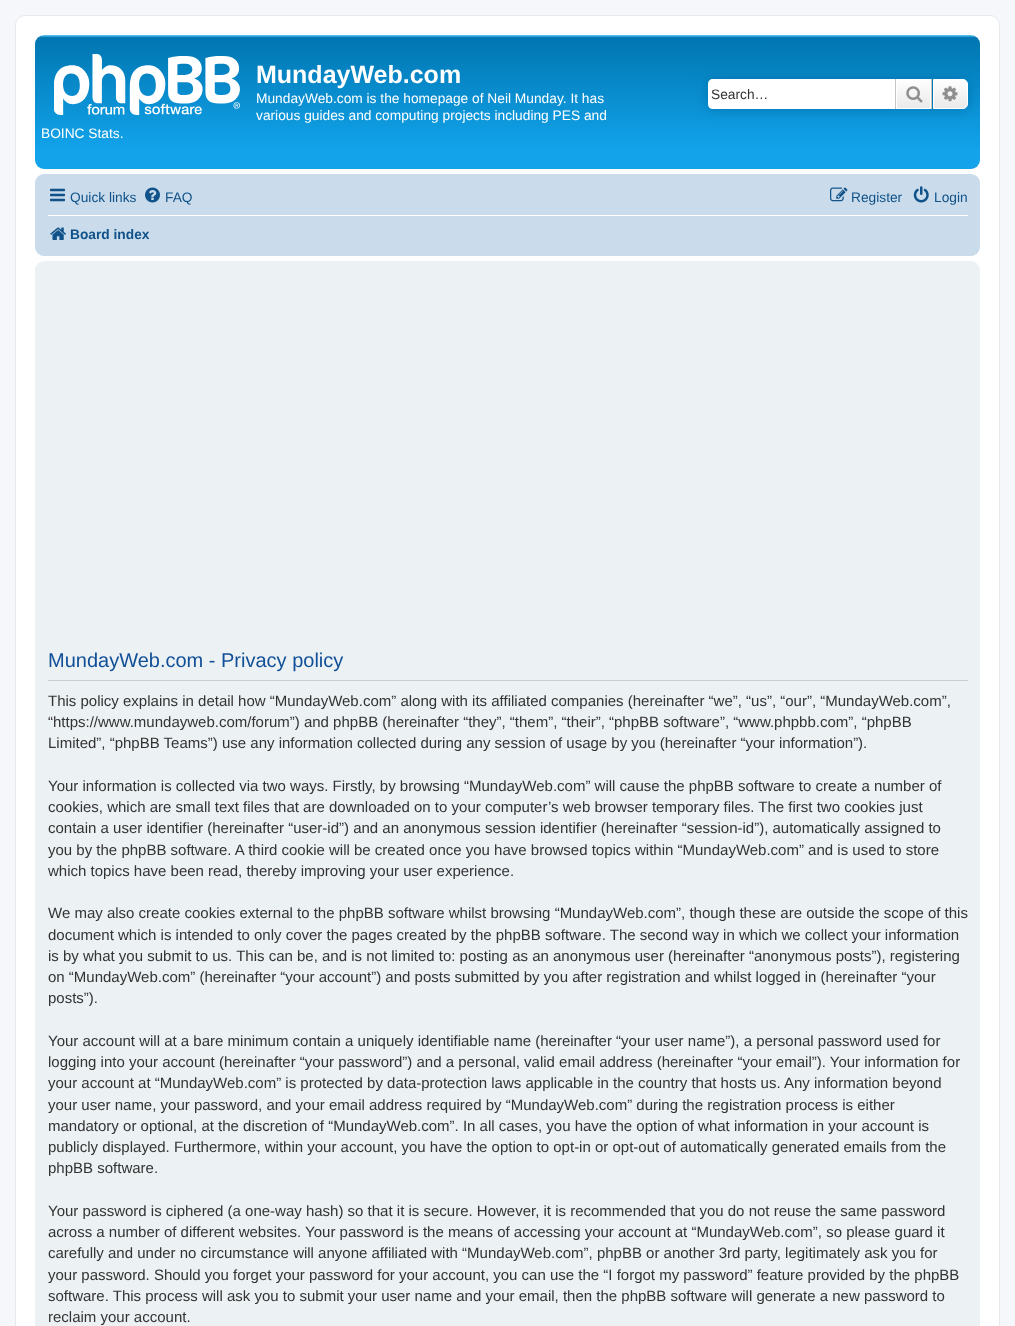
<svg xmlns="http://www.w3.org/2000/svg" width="1015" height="1326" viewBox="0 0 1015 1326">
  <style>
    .t1 { font: bold 25px Liberation Sans; fill: #fff; }
    .t2 { font: 13.75px Liberation Sans; fill: #fff; }
    .t3 { font: 13.75px Liberation Sans; fill: #333; }
    .t4 { font: 13.75px Liberation Sans; fill: #105289; }
    .t5 { font: bold 13.75px Liberation Sans; fill: #105289; }
    .t6 { font: 20px Liberation Sans; fill: #115098; }
    .t7 { font: 15px Liberation Sans; fill: #333; }
  </style>
  <defs>
    <linearGradient id="g1" gradientUnits="userSpaceOnUse" x1="508" y1="35" x2="508" y2="169"><stop offset="0" stop-color="#6aceff"/><stop offset="0.02" stop-color="#0076b1"/><stop offset="0.86" stop-color="#12a3eb"/><stop offset="1" stop-color="#12a3eb"/></linearGradient>
    <linearGradient id="g2" gradientUnits="userSpaceOnUse" x1="914" y1="79" x2="914" y2="109"><stop offset="0" stop-color="#fff"/><stop offset="1" stop-color="#e9e9e9"/></linearGradient>
    <linearGradient id="g3" gradientUnits="userSpaceOnUse" x1="950" y1="79" x2="950" y2="109"><stop offset="0" stop-color="#fff"/><stop offset="1" stop-color="#e9e9e9"/></linearGradient>
  </defs>
  <rect width="100%" height="100%" fill="#f5f7fa"/>
  <rect x="15.5" y="15.5" width="984" height="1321" rx="9.5" fill="#fff" stroke="#e6e9ed"/>
  <rect x="35" y="35" width="945" height="134" rx="9" fill="url(#g1)"/>
  <image x="54" y="54" width="186" height="61" href="images/1.png"/>
  <text x="256" y="83" class="t1">MundayWeb.com</text>
  <text x="256" y="103" class="t2">MundayWeb.com is the homepage of Neil Munday. It has</text>
  <text x="256" y="120" class="t2">various guides and computing projects including PES and</text>
  <text x="41" y="138" class="t2">BOINC Stats.</text>
  <rect x="708" y="79" width="260" height="30" rx="5" fill="#0075b0" filter="blur(6px)"/>
  <path d="M713 79H895V109H713C710 109 708 107 708 104V84C708 81 710 79 713 79Z" fill="#fff"/>
  <text x="711" y="99" class="t3">Search…</text>
  <rect x="897" y="80" width="33" height="28" fill="url(#g2)"/>
  <rect x="896.5" y="79.5" width="34" height="29" fill="none" stroke="#fff"/>
  <rect x="931" y="79" width="1" height="30" fill="#c7c3bf"/>
  <rect x="895" y="79" width="1" height="30" fill="#c7c3bf"/>
  <image x="906" y="86" width="17" height="17" href="images/2.png"/>
  <path d="M933.5 79.5H963C965.5 79.5 967.5 81.5 967.5 84V104C967.5 106.5 965.5 108.5 963 108.5H933.5Z" fill="url(#g3)" stroke="#fff"/>
  <image x="942" y="86" width="16" height="16" href="images/3.png"/>
  <rect x="35" y="174" width="945" height="82" rx="9" fill="#cadceb"/>
  <image x="50" y="188" width="15" height="14" href="images/4.png"/>
  <text x="70" y="202" class="t4">Quick links</text>
  <image x="145" y="187" width="15" height="16" href="images/5.png"/>
  <text x="165" y="202" class="t4">FAQ</text>
  <image x="830" y="187" width="18" height="15" href="images/6.png"/>
  <text x="851" y="202" class="t4">Register</text>
  <image x="913" y="186" width="16" height="17" href="images/7.png"/>
  <text x="934" y="202" class="t4">Login</text>
  <rect x="48" y="215" width="920" height="1" fill="#fff"/>
  <image x="50" y="227" width="16" height="13" href="images/8.png"/>
  <text x="70" y="239" class="t5">Board index</text>
  <rect x="35" y="261" width="945" height="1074" rx="9" fill="#ecf1f3"/>
  <rect x="48" y="680" width="920" height="1" fill="#ccc"/>
  <text x="48" y="667" class="t6">MundayWeb.com - Privacy policy</text>
  <text x="48" y="706" class="t7">This policy explains in detail how “MundayWeb.com” along with its affiliated companies (hereinafter “we”, “us”, “our”, “MundayWeb.com”,</text>
  <text x="48" y="727" class="t7">“https://www.mundayweb.com/forum”) and phpBB (hereinafter “they”, “them”, “their”, “phpBB software”, “www.phpbb.com”, “phpBB</text>
  <text x="48" y="748" class="t7">Limited”, “phpBB Teams”) use any information collected during any session of usage by you (hereinafter “your information”).</text>
  <text x="48" y="791" class="t7">Your information is collected via two ways. Firstly, by browsing “MundayWeb.com” will cause the phpBB software to create a number of</text>
  <text x="48" y="812" class="t7">cookies, which are small text files that are downloaded on to your computer’s web browser temporary files. The first two cookies just</text>
  <text x="48" y="833" class="t7">contain a user identifier (hereinafter “user-id”) and an anonymous session identifier (hereinafter “session-id”), automatically assigned to</text>
  <text x="48" y="855" class="t7">you by the phpBB software. A third cookie will be created once you have browsed topics within “MundayWeb.com” and is used to store</text>
  <text x="48" y="876" class="t7">which topics have been read, thereby improving your user experience.</text>
  <text x="48" y="918" class="t7">We may also create cookies external to the phpBB software whilst browsing “MundayWeb.com”, though these are outside the scope of this</text>
  <text x="48" y="940" class="t7">document which is intended to only cover the pages created by the phpBB software. The second way in which we collect your information</text>
  <text x="48" y="961" class="t7">is by what you submit to us. This can be, and is not limited to: posting as an anonymous user (hereinafter “anonymous posts”), registering</text>
  <text x="48" y="982" class="t7">on “MundayWeb.com” (hereinafter “your account”) and posts submitted by you after registration and whilst logged in (hereinafter “your</text>
  <text x="48" y="1003" class="t7">posts”).</text>
  <text x="48" y="1046" class="t7">Your account will at a bare minimum contain a uniquely identifiable name (hereinafter “your user name”), a personal password used for</text>
  <text x="48" y="1067" class="t7">logging into your account (hereinafter “your password”) and a personal, valid email address (hereinafter “your email”). Your information for</text>
  <text x="48" y="1088" class="t7">your account at “MundayWeb.com” is protected by data-protection laws applicable in the country that hosts us. Any information beyond</text>
  <text x="48" y="1110" class="t7">your user name, your password, and your email address required by “MundayWeb.com” during the registration process is either</text>
  <text x="48" y="1131" class="t7">mandatory or optional, at the discretion of “MundayWeb.com”. In all cases, you have the option of what information in your account is</text>
  <text x="48" y="1152" class="t7">publicly displayed. Furthermore, within your account, you have the option to opt-in or opt-out of automatically generated emails from the</text>
  <text x="48" y="1173" class="t7">phpBB software.</text>
  <text x="48" y="1216" class="t7">Your password is ciphered (a one-way hash) so that it is secure. However, it is recommended that you do not reuse the same password</text>
  <text x="48" y="1237" class="t7">across a number of different websites. Your password is the means of accessing your account at “MundayWeb.com”, so please guard it</text>
  <text x="48" y="1258" class="t7">carefully and under no circumstance will anyone affiliated with “MundayWeb.com”, phpBB or another 3rd party, legitimately ask you for</text>
  <text x="48" y="1280" class="t7">your password. Should you forget your password for your account, you can use the “I forgot my password” feature provided by the phpBB</text>
  <text x="48" y="1301" class="t7">software. This process will ask you to submit your user name and your email, then the phpBB software will generate a new password to</text>
  <text x="48" y="1322" class="t7">reclaim your account.</text>
</svg>
